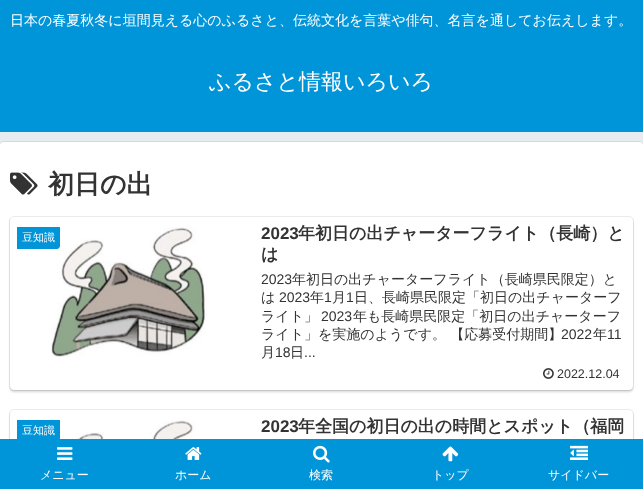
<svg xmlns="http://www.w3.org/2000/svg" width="643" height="489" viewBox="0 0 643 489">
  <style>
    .t1 { font: 500 14px WenQuanYi Zen Hei; fill: #fff; }
    .t2 { font: 500 22px WenQuanYi Zen Hei; fill: #fff; }
    .t3 { font: bold 26px WenQuanYi Zen Hei; fill: #333; }
    .t4 { font: 500 11px WenQuanYi Zen Hei; fill: #fff; }
    .t5 { font: bold 17px Liberation Sans; fill: #333; }
    .t6 { font: bold 17px WenQuanYi Zen Hei; fill: #333; }
    .t7 { font: 14px Liberation Sans; fill: #333; }
    .t8 { font: 500 14px WenQuanYi Zen Hei; fill: #333; }
    .t9 { font: 12.5px Liberation Sans; fill: #333; }
    .t10 { font: 500 12px WenQuanYi Zen Hei; fill: #fff; }
  </style>
  <defs>
    <clipPath id="clip1"><path d="M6 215H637V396H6ZM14 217H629C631 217 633 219 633 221V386C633 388 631 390 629 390H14C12 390 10 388 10 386V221C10 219 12 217 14 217Z" clip-rule="evenodd"/></clipPath>
    <clipPath id="clip2"><path d="M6 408H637V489H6ZM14 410H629C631 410 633 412 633 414V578C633 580 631 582 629 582H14C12 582 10 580 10 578V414C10 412 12 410 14 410Z" clip-rule="evenodd"/></clipPath>
  </defs>
  <rect width="100%" height="100%" fill="#e6ecf0"/>
  <rect x="0" y="0" width="643" height="132" fill="#0095d9"/>
  <text x="10" y="25" class="t1">日本の春夏秋冬に垣間見える心のふるさと、伝統文化を言葉や俳句、名言を通してお伝えします。</text>
  <text x="209" y="89" class="t2">ふるさと情報いろいろ</text>
  <rect x="-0.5" y="141.5" width="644" height="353" rx="4.5" fill="none" stroke="#d4d9dd"/>
  <rect x="0" y="142" width="643" height="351" rx="4" fill="#fff"/>
  <image x="10" y="172" width="28" height="23" href="images/1.png"/>
  <text x="48" y="193" class="t3">初日の出</text>
  <rect x="9.5" y="216.5" width="624" height="174" rx="4.5" fill="none" stroke="#ebebeb"/>
  <g clip-path="url(#clip1)">
    <rect x="10" y="219" width="623" height="173" rx="4" fill="#00000029" filter="blur(1px)"/>
  </g>
  <image x="51" y="227" width="156" height="130" href="images/2.png"/>
  <path d="M17 227H60V246C60 247.5 58.5 249 57 249H17Z" fill="#0095d9"/>
  <text x="22" y="241" class="t4">豆知識</text>
  <text x="261" y="239" class="t5">2023</text>
  <text x="298" y="239" class="t6">年初日の出チャーターフライト（長崎）と</text>
  <text x="261" y="260" class="t6">は</text>
  <text x="261" y="284" class="t7">2023</text>
  <text x="292" y="284" class="t8">年初日の出チャーターフライト（長崎県民限定）と</text>
  <text x="261" y="302" class="t8">は</text>
  <text x="279" y="302" class="t7">2023</text>
  <text x="310" y="302" class="t8">年</text>
  <text x="324" y="302" class="t7">1</text>
  <text x="332" y="302" class="t8">月</text>
  <text x="346" y="302" class="t7">1</text>
  <text x="354" y="302" class="t8">日、長崎県民限定「初日の出チャーターフ</text>
  <text x="261" y="321" class="t8">ライト」</text>
  <text x="321" y="321" class="t7">2023</text>
  <text x="353" y="321" class="t8">年も長崎県民限定「初日の出チャーターフ</text>
  <text x="261" y="339" class="t8">ライト」を実施のようです。 【応募受付期間】</text>
  <text x="561" y="339" class="t7">2022</text>
  <text x="593" y="339" class="t8">年</text>
  <text x="607" y="339" class="t7">11</text>
  <text x="261" y="357" class="t8">月</text>
  <text x="275" y="357" class="t7">18</text>
  <text x="290" y="357" class="t8">日</text>
  <text x="304" y="357" class="t7">...</text>
  <image x="543" y="368" width="11" height="11" href="images/3.png"/>
  <text x="557" y="378" class="t9">2022.12.04</text>
  <rect x="9.5" y="409.5" width="624" height="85" rx="4.5" fill="none" stroke="#ebebeb"/>
  <g clip-path="url(#clip2)">
    <rect x="10" y="412" width="623" height="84" rx="4" fill="#00000029" filter="blur(1px)"/>
  </g>
  <path d="M17 420H60V438C60 439.5 58.5 441 57 441H17Z" fill="#0095d9"/>
  <text x="22" y="434" class="t4">豆知識</text>
  <image x="61" y="420" width="145" height="19" href="images/4.png"/>
  <text x="261" y="432" class="t5">2023</text>
  <text x="298" y="432" class="t6">年全国の初日の出の時間とスポット（福岡</text>
  <rect x="0" y="439" width="643" height="50" fill="#0095d9"/>
  <image x="57" y="447" width="16" height="13" href="images/5.png"/>
  <text x="40" y="479" class="t10">メニュー</text>
  <image x="185" y="447" width="17" height="13" href="images/6.png"/>
  <text x="175" y="479" class="t10">ホーム</text>
  <image x="313" y="445" width="17" height="18" href="images/7.png"/>
  <text x="309" y="479" class="t10">検索</text>
  <image x="442" y="446" width="17" height="16" href="images/8.png"/>
  <text x="432" y="479" class="t10">トップ</text>
  <image x="570" y="445" width="18" height="15" href="images/9.png"/>
  <text x="548" y="479" class="t10">サイドバー</text>
</svg>
